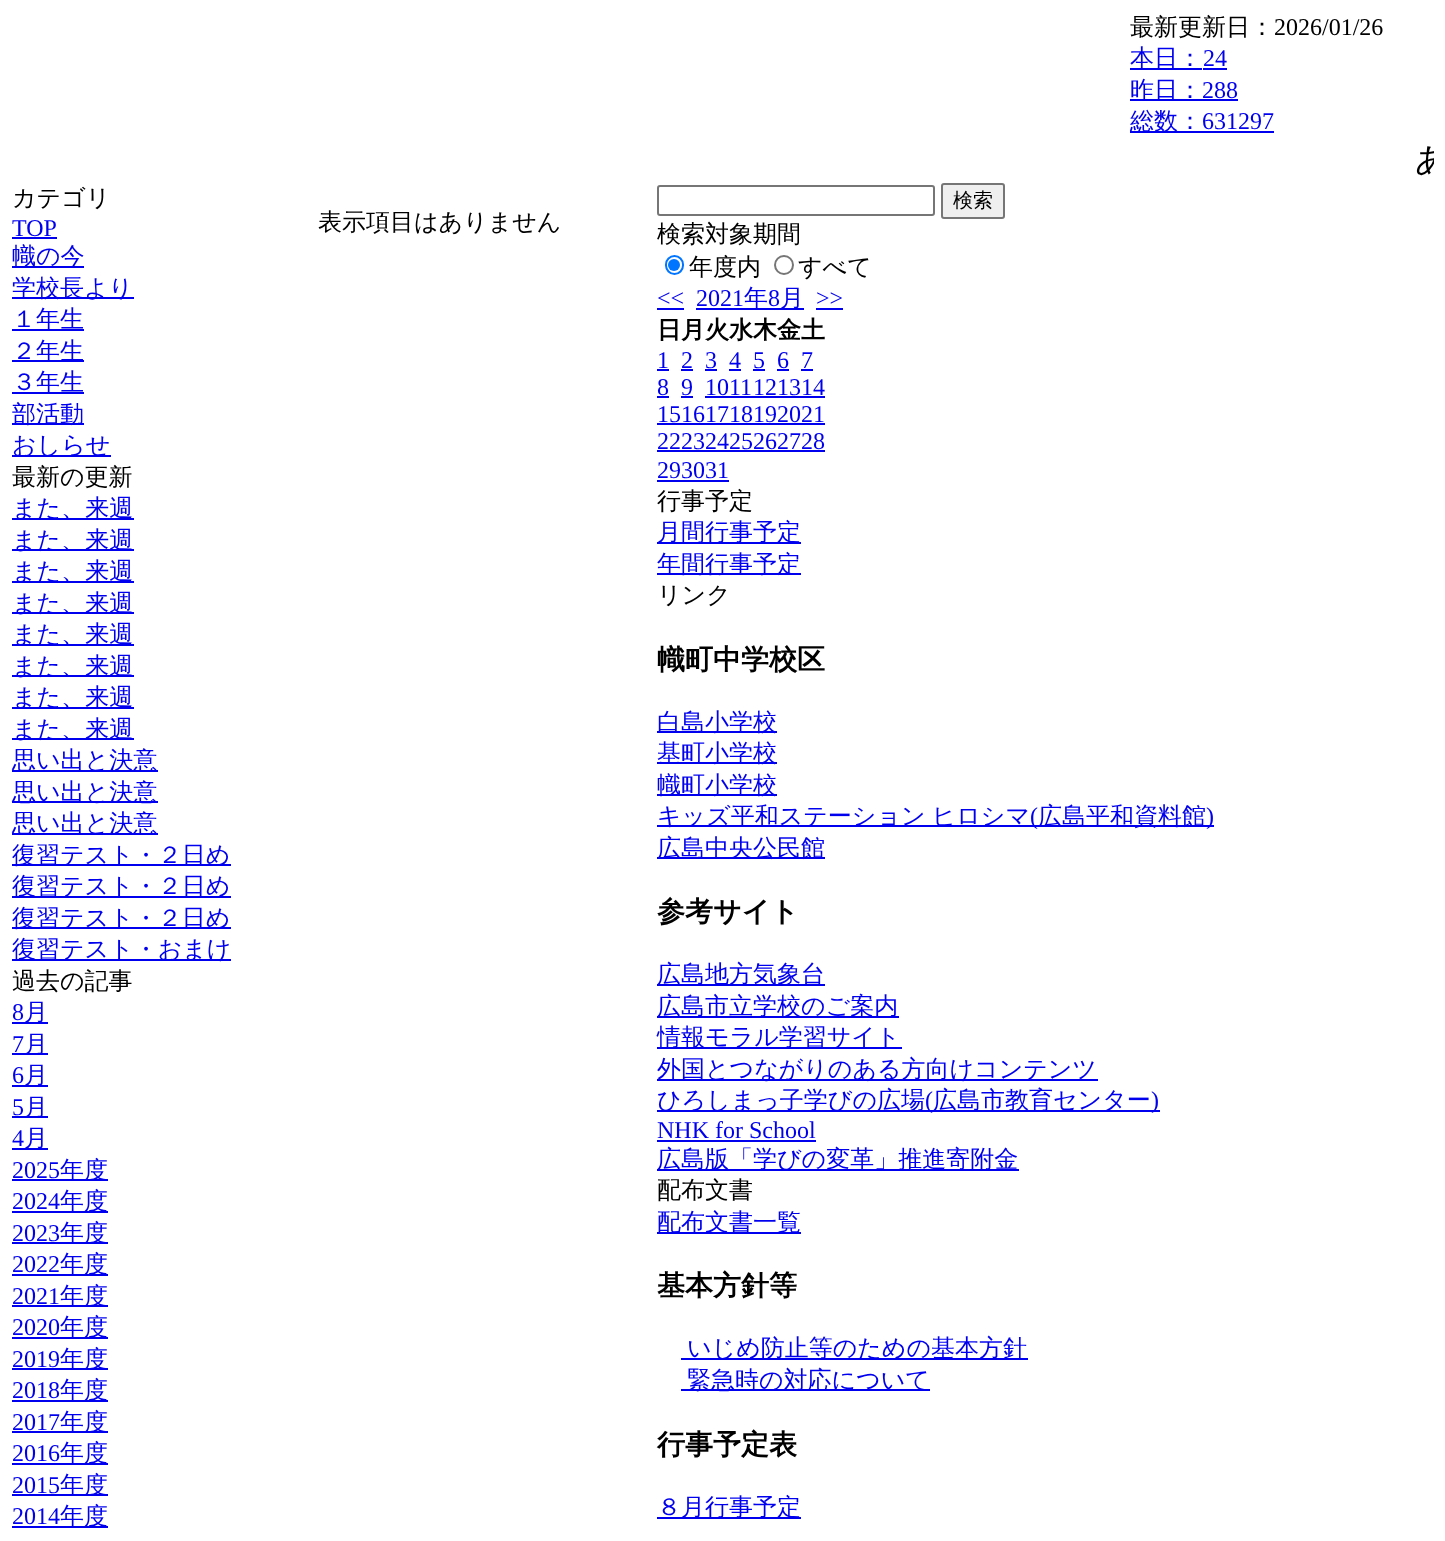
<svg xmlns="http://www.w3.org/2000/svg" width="1445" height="1541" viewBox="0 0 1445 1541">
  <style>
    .t1 { font: 500 24px WenQuanYi Zen Hei; fill: #000; }
    .t2 { font: 24px Liberation Serif; fill: #000; }
    .t3 { font: 500 24px WenQuanYi Zen Hei; fill: #00e; }
    .t4 { font: 24px Liberation Serif; fill: #00e; }
    .t5 { font: 500 33px WenQuanYi Zen Hei; fill: #000; }
    .t6 { font: 500 20px WenQuanYi Zen Hei; fill: #000; }
    .t7 { font: bold 24px WenQuanYi Zen Hei; fill: #000; }
    .t8 { font: bold 28px WenQuanYi Zen Hei; fill: #000; }
  </style>
  <defs>
    <clipPath id="clip1"><rect x="12" y="138" width="1422" height="45"/></clipPath>
  </defs>
  <rect width="100%" height="100%" fill="#fff"/>
  <text x="1130" y="35" class="t1">最新更新日：</text>
  <text x="1274" y="35" class="t2">2026/01/26</text>
  <rect x="1130" y="68" width="72" height="2" fill="#00e"/>
  <text x="1130" y="66" class="t3">本日：</text>
  <text x="1203" y="66" class="t4">24</text>
  <rect x="1203" y="68" width="24" height="2" fill="#00e"/>
  <rect x="1130" y="99" width="108" height="2" fill="#00e"/>
  <text x="1130" y="98" class="t3">昨日：</text>
  <text x="1202" y="98" class="t4">288</text>
  <rect x="1130" y="131" width="144" height="2" fill="#00e"/>
  <text x="1130" y="129" class="t3">総数：</text>
  <text x="1202" y="129" class="t4">631297</text>
  <g clip-path="url(#clip1)">
    <text x="1415" y="171" word-spacing="-2" class="t5">あ</text>
  </g>
  <text x="12" y="206" class="t1">カテゴリ</text>
  <text x="12" y="236" class="t4">TOP</text>
  <rect x="12" y="237" width="45" height="2" fill="#00e"/>
  <rect x="12" y="266" width="72" height="2" fill="#00e"/>
  <text x="12" y="264" class="t3">幟の今</text>
  <rect x="12" y="297" width="122" height="2" fill="#00e"/>
  <text x="12" y="296" class="t3">学校長より</text>
  <rect x="12" y="329" width="72" height="2" fill="#00e"/>
  <text x="12" y="327" class="t3">１年生</text>
  <rect x="12" y="360" width="72" height="2" fill="#00e"/>
  <text x="12" y="359" class="t3">２年生</text>
  <rect x="12" y="392" width="72" height="2" fill="#00e"/>
  <text x="12" y="390" class="t3">３年生</text>
  <rect x="12" y="423" width="72" height="2" fill="#00e"/>
  <text x="12" y="422" class="t3">部活動</text>
  <rect x="12" y="455" width="99" height="2" fill="#00e"/>
  <text x="12" y="453" class="t3">おしらせ</text>
  <text x="12" y="485" class="t1">最新の更新</text>
  <rect x="12" y="518" width="122" height="2" fill="#00e"/>
  <text x="12" y="516" class="t3">また、来週</text>
  <rect x="12" y="549" width="122" height="2" fill="#00e"/>
  <text x="12" y="548" class="t3">また、来週</text>
  <rect x="12" y="581" width="122" height="2" fill="#00e"/>
  <text x="12" y="579" class="t3">また、来週</text>
  <rect x="12" y="612" width="122" height="2" fill="#00e"/>
  <text x="12" y="611" class="t3">また、来週</text>
  <rect x="12" y="644" width="122" height="2" fill="#00e"/>
  <text x="12" y="642" class="t3">また、来週</text>
  <rect x="12" y="675" width="122" height="2" fill="#00e"/>
  <text x="12" y="674" class="t3">また、来週</text>
  <rect x="12" y="707" width="122" height="2" fill="#00e"/>
  <text x="12" y="705" class="t3">また、来週</text>
  <rect x="12" y="738" width="122" height="2" fill="#00e"/>
  <text x="12" y="737" class="t3">また、来週</text>
  <rect x="12" y="770" width="146" height="2" fill="#00e"/>
  <text x="12" y="768" class="t3">思い出と決意</text>
  <rect x="12" y="801" width="146" height="2" fill="#00e"/>
  <text x="12" y="800" class="t3">思い出と決意</text>
  <rect x="12" y="833" width="146" height="2" fill="#00e"/>
  <text x="12" y="831" class="t3">思い出と決意</text>
  <rect x="12" y="864" width="219" height="2" fill="#00e"/>
  <text x="12" y="863" class="t3">復習テスト・２日め</text>
  <rect x="12" y="896" width="219" height="2" fill="#00e"/>
  <text x="12" y="894" class="t3">復習テスト・２日め</text>
  <rect x="12" y="927" width="219" height="2" fill="#00e"/>
  <text x="12" y="926" class="t3">復習テスト・２日め</text>
  <rect x="12" y="959" width="219" height="2" fill="#00e"/>
  <text x="12" y="957" class="t3">復習テスト・おまけ</text>
  <text x="12" y="989" class="t1">過去の記事</text>
  <text x="12" y="1020" class="t4">8</text>
  <rect x="12" y="1022" width="36" height="2" fill="#00e"/>
  <text x="24" y="1020" class="t3">月</text>
  <text x="12" y="1052" class="t4">7</text>
  <rect x="12" y="1053" width="36" height="2" fill="#00e"/>
  <text x="24" y="1052" class="t3">月</text>
  <text x="12" y="1083" class="t4">6</text>
  <rect x="12" y="1085" width="36" height="2" fill="#00e"/>
  <text x="24" y="1083" class="t3">月</text>
  <text x="12" y="1115" class="t4">5</text>
  <rect x="12" y="1116" width="36" height="2" fill="#00e"/>
  <text x="24" y="1115" class="t3">月</text>
  <text x="12" y="1146" class="t4">4</text>
  <rect x="12" y="1148" width="36" height="2" fill="#00e"/>
  <text x="24" y="1146" class="t3">月</text>
  <text x="12" y="1178" class="t4">2025</text>
  <rect x="12" y="1179" width="96" height="2" fill="#00e"/>
  <text x="60" y="1178" class="t3">年度</text>
  <text x="12" y="1209" class="t4">2024</text>
  <rect x="12" y="1211" width="96" height="2" fill="#00e"/>
  <text x="60" y="1209" class="t3">年度</text>
  <text x="12" y="1241" class="t4">2023</text>
  <rect x="12" y="1242" width="96" height="2" fill="#00e"/>
  <text x="60" y="1241" class="t3">年度</text>
  <text x="12" y="1272" class="t4">2022</text>
  <rect x="12" y="1274" width="96" height="2" fill="#00e"/>
  <text x="60" y="1272" class="t3">年度</text>
  <text x="12" y="1304" class="t4">2021</text>
  <rect x="12" y="1305" width="96" height="2" fill="#00e"/>
  <text x="60" y="1304" class="t3">年度</text>
  <text x="12" y="1335" class="t4">2020</text>
  <rect x="12" y="1337" width="96" height="2" fill="#00e"/>
  <text x="60" y="1335" class="t3">年度</text>
  <text x="12" y="1367" class="t4">2019</text>
  <rect x="12" y="1368" width="96" height="2" fill="#00e"/>
  <text x="60" y="1367" class="t3">年度</text>
  <text x="12" y="1398" class="t4">2018</text>
  <rect x="12" y="1400" width="96" height="2" fill="#00e"/>
  <text x="60" y="1398" class="t3">年度</text>
  <text x="12" y="1430" class="t4">2017</text>
  <rect x="12" y="1431" width="96" height="2" fill="#00e"/>
  <text x="60" y="1430" class="t3">年度</text>
  <text x="12" y="1461" class="t4">2016</text>
  <rect x="12" y="1463" width="96" height="2" fill="#00e"/>
  <text x="60" y="1461" class="t3">年度</text>
  <text x="12" y="1493" class="t4">2015</text>
  <rect x="12" y="1494" width="96" height="2" fill="#00e"/>
  <text x="60" y="1493" class="t3">年度</text>
  <text x="12" y="1524" class="t4">2014</text>
  <rect x="12" y="1526" width="96" height="2" fill="#00e"/>
  <text x="60" y="1524" class="t3">年度</text>
  <text x="318" y="230" class="t1">表示項目はありません</text>
  <rect x="658" y="186" width="276" height="29" rx="2" fill="none" stroke="#767676" stroke-width="2"/>
  <rect x="942" y="184" width="62" height="34" rx="2" fill="#efefef" stroke="#767676" stroke-width="2"/>
  <text x="953" y="207" class="t6">検索</text>
  <text x="657" y="242" class="t1">検索対象期間</text>
  <rect x="666" y="256" width="17" height="18" rx="8.5" fill="none" stroke="#0075ff" stroke-width="2"/>
  <circle cx="674" cy="265" r="6" fill="#0075ff"/>
  <text x="689" y="275" class="t1">年度内</text>
  <circle cx="784" cy="265" r="9" fill="none" stroke="#767676" stroke-width="2"/>
  <text x="798" y="275" class="t1">すべて</text>
  <text x="657" y="306" class="t4">&lt;&lt;</text>
  <rect x="657" y="308" width="27" height="2" fill="#00e"/>
  <text x="696" y="306" class="t4">2021</text>
  <rect x="696" y="308" width="108" height="2" fill="#00e"/>
  <text x="744" y="306" class="t3">年</text>
  <text x="768" y="306" class="t4">8</text>
  <text x="780" y="306" class="t3">月</text>
  <text x="816" y="306" class="t4">&gt;&gt;</text>
  <rect x="816" y="308" width="27" height="2" fill="#00e"/>
  <text x="657" y="338" class="t7">日月火水木金土</text>
  <text x="657" y="368" class="t4">1</text>
  <rect x="657" y="369" width="12" height="2" fill="#00e"/>
  <text x="681" y="368" class="t4">2</text>
  <rect x="681" y="369" width="12" height="2" fill="#00e"/>
  <text x="705" y="368" class="t4">3</text>
  <rect x="705" y="369" width="12" height="2" fill="#00e"/>
  <text x="729" y="368" class="t4">4</text>
  <rect x="729" y="369" width="12" height="2" fill="#00e"/>
  <text x="753" y="368" class="t4">5</text>
  <rect x="753" y="369" width="12" height="2" fill="#00e"/>
  <text x="777" y="368" class="t4">6</text>
  <rect x="777" y="369" width="12" height="2" fill="#00e"/>
  <text x="801" y="368" class="t4">7</text>
  <rect x="801" y="369" width="12" height="2" fill="#00e"/>
  <text x="657" y="395" class="t4">8</text>
  <rect x="657" y="396" width="12" height="2" fill="#00e"/>
  <text x="681" y="395" class="t4">9</text>
  <rect x="681" y="396" width="12" height="2" fill="#00e"/>
  <text x="705" y="395" class="t4">1011</text>
  <rect x="705" y="396" width="120" height="2" fill="#00e"/>
  <text x="753" y="395" class="t4">121314</text>
  <text x="657" y="422" class="t4">15161718192021</text>
  <rect x="657" y="423" width="168" height="2" fill="#00e"/>
  <text x="657" y="449" class="t4">22232425262728</text>
  <rect x="657" y="450" width="168" height="2" fill="#00e"/>
  <text x="657" y="478" class="t4">293031</text>
  <rect x="657" y="480" width="72" height="2" fill="#00e"/>
  <text x="657" y="509" class="t1">行事予定</text>
  <rect x="657" y="542" width="144" height="2" fill="#00e"/>
  <text x="657" y="540" class="t3">月間行事予定</text>
  <rect x="657" y="573" width="144" height="2" fill="#00e"/>
  <text x="657" y="572" class="t3">年間行事予定</text>
  <text x="657" y="603" class="t1">リンク</text>
  <text x="657" y="669" class="t8">幟町中学校区</text>
  <rect x="657" y="731" width="120" height="2" fill="#00e"/>
  <text x="657" y="730" class="t3">白島小学校</text>
  <rect x="657" y="762" width="120" height="2" fill="#00e"/>
  <text x="657" y="761" class="t3">基町小学校</text>
  <rect x="657" y="794" width="120" height="2" fill="#00e"/>
  <text x="657" y="793" class="t3">幟町小学校</text>
  <rect x="657" y="825" width="557" height="2" fill="#00e"/>
  <text x="657" y="824" word-spacing="-1" class="t3">キッズ平和ステーション ヒロシマ</text>
  <text x="1030" y="824" class="t4">(</text>
  <text x="1038" y="824" class="t3">広島平和資料館</text>
  <text x="1206" y="824" class="t4">)</text>
  <rect x="657" y="857" width="168" height="2" fill="#00e"/>
  <text x="657" y="856" class="t3">広島中央公民館</text>
  <text x="657" y="921" class="t8">参考サイト</text>
  <rect x="657" y="984" width="168" height="2" fill="#00e"/>
  <text x="657" y="982" class="t3">広島地方気象台</text>
  <rect x="657" y="1016" width="242" height="2" fill="#00e"/>
  <text x="657" y="1014" class="t3">広島市立学校のご案内</text>
  <rect x="657" y="1047" width="245" height="2" fill="#00e"/>
  <text x="657" y="1045" class="t3">情報モラル学習サイト</text>
  <rect x="657" y="1079" width="441" height="2" fill="#00e"/>
  <text x="657" y="1077" class="t3">外国とつながりのある方向けコンテンツ</text>
  <rect x="657" y="1110" width="503" height="2" fill="#00e"/>
  <text x="657" y="1108" class="t3">ひろしまっ子学びの広場</text>
  <text x="925" y="1108" class="t4">(</text>
  <text x="933" y="1108" class="t3">広島市教育センター</text>
  <text x="1151" y="1108" class="t4">)</text>
  <text x="657" y="1138" class="t4">NHK for School</text>
  <rect x="657" y="1140" width="159" height="2" fill="#00e"/>
  <rect x="657" y="1169" width="362" height="2" fill="#00e"/>
  <text x="657" y="1167" class="t3">広島版「学びの変革」推進寄附金</text>
  <text x="657" y="1198" class="t1">配布文書</text>
  <rect x="657" y="1232" width="144" height="2" fill="#00e"/>
  <text x="657" y="1230" class="t3">配布文書一覧</text>
  <text x="657" y="1295" class="t8">基本方針等</text>
  <rect x="681" y="1358" width="347" height="2" fill="#00e"/>
  <text x="687" y="1356" class="t3">いじめ防止等のための基本方針</text>
  <rect x="681" y="1389" width="249" height="2" fill="#00e"/>
  <text x="687" y="1388" class="t3">緊急時の対応について</text>
  <text x="657" y="1454" class="t8">行事予定表</text>
  <rect x="657" y="1517" width="144" height="2" fill="#00e"/>
  <text x="657" y="1515" class="t3">８月行事予定</text>
</svg>
